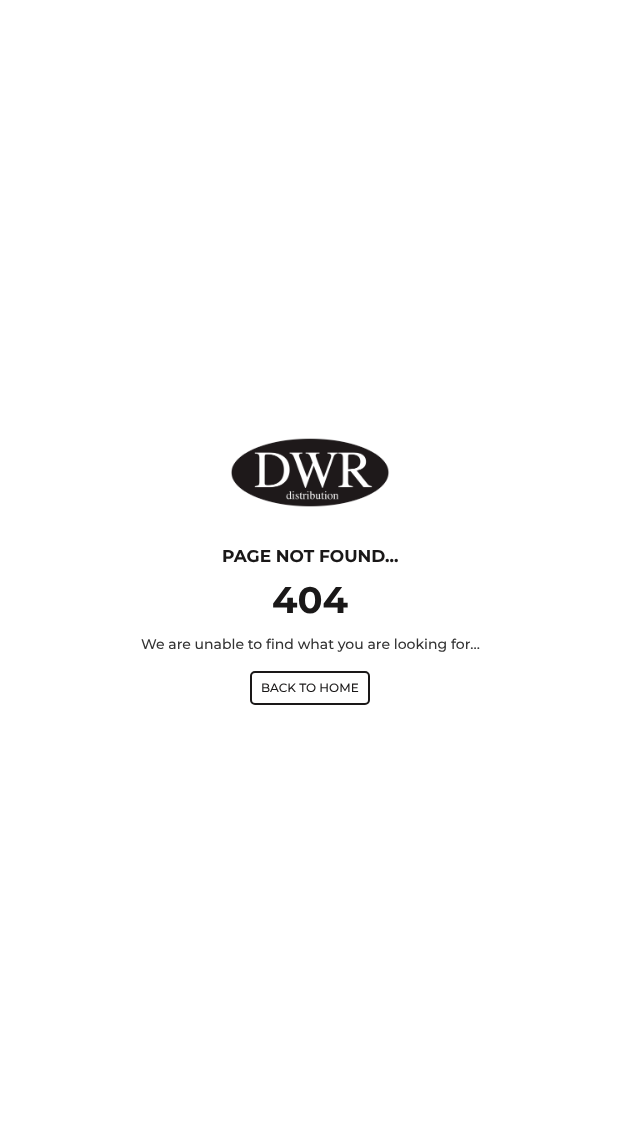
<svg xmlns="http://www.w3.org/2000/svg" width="620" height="1142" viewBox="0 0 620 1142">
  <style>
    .t1 { font: bold 17px Montserrat; fill: #1a1818; }
    .t2 { font: bold 37px Montserrat; fill: #1a1818; }
    .t3 { font: 500 14px Montserrat; fill: #333; }
    .t4 { font: 500 12px Montserrat; fill: #1a1818; }
  </style>
  <rect width="100%" height="100%" fill="#fff"/>
  <image x="231" y="438" width="159" height="69" href="images/1.png"/>
  <text x="222" y="562" class="t1">PAGE NOT FOUND...</text>
  <text x="272" y="613" class="t2">404</text>
  <text x="141" y="649" class="t3">We are unable to find what you are looking for…</text>
  <rect x="251" y="672" width="118" height="32" rx="4" fill="none" stroke="#1a1818" stroke-width="2"/>
  <text x="261" y="692" class="t4">BACK TO HOME</text>
</svg>
